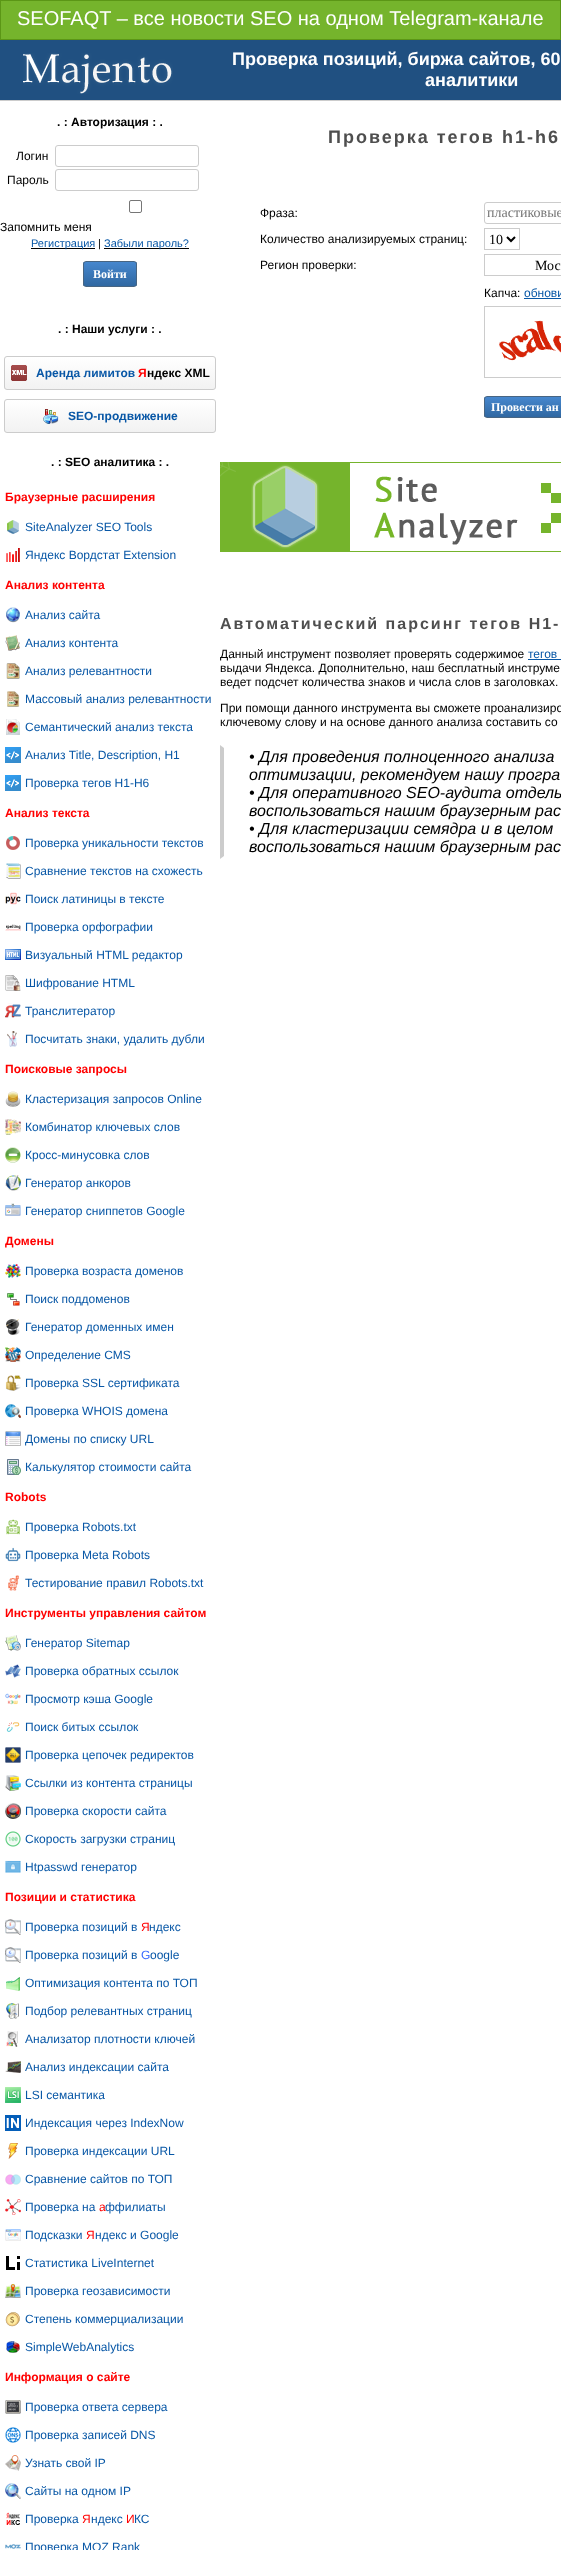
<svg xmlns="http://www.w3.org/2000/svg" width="561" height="2550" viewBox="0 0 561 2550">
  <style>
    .t1 { font: 20px Liberation Sans; fill: #fff; }
    .t2 { font: bold 18px Liberation Sans; fill: #fff; }
    .t3 { font: bold 12px Liberation Sans; fill: #000; }
    .t4 { font: 12px Liberation Sans; fill: #000; }
    .t5 { font: 11px Liberation Sans; fill: #0857a6; }
    .t6 { font: 11px Liberation Sans; fill: #000; }
    .t7 { font: bold 12px Liberation Serif; fill: #fff; }
    .t8 { font: bold 12px Liberation Sans; fill: #0857a6; }
    .t9 { font: bold 12px Liberation Sans; fill: #f00; }
    .t10 { font: 12px Liberation Sans; fill: #0857a6; }
    .t11 { font: 12px Liberation Sans; fill: #f00; }
    .t12 { font: 12px Liberation Sans; fill: #36f; }
    .t13 { font: bold 18px Liberation Sans; letter-spacing: 2px; fill: #4e4e4e; }
    .t14 { font: 14px Liberation Serif; fill: #757575; }
    .t15 { font: 14px Liberation Serif; fill: #000; }
    .t16 { font: bold 16px Liberation Sans; letter-spacing: 2px; fill: #4e4e4e; }
    .t17 { font: italic 16px Liberation Sans; fill: #000; }
  </style>
  <defs>
    <clipPath id="clip1"><rect x="83" y="261" width="54" height="26" rx="3"/></clipPath>
    <linearGradient id="g1" gradientUnits="userSpaceOnUse" x1="110" y1="262" x2="110" y2="286"><stop offset="0" stop-color="#4687ce"/><stop offset="1" stop-color="#3068a2"/></linearGradient>
    <clipPath id="clip2"><rect x="4" y="356" width="212" height="34" rx="3"/></clipPath>
    <linearGradient id="g2" gradientUnits="userSpaceOnUse" x1="110" y1="357" x2="110" y2="389"><stop offset="0" stop-color="#fff"/><stop offset="1" stop-color="#f2f2f2"/></linearGradient>
    <clipPath id="clip3"><rect x="4" y="399" width="212" height="34" rx="3"/></clipPath>
    <linearGradient id="g3" gradientUnits="userSpaceOnUse" x1="110" y1="400" x2="110" y2="432"><stop offset="0" stop-color="#fff"/><stop offset="1" stop-color="#f2f2f2"/></linearGradient>
    <clipPath id="clip4"><rect x="484" y="396" width="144" height="22" rx="3"/></clipPath>
    <linearGradient id="g4" gradientUnits="userSpaceOnUse" x1="556" y1="397" x2="556" y2="417"><stop offset="0" stop-color="#4687ce"/><stop offset="1" stop-color="#3068a2"/></linearGradient>
  </defs>
  <rect width="100%" height="100%" fill="#75b42c"/>
  <rect x="0.5" y="0.5" width="560" height="39" fill="none" stroke="#5b9616"/>
  <text x="17" y="25" class="t1">SEOFAQT – все новости SEO на одном Telegram-канале</text>
  <rect x="0" y="40" width="561" height="60" fill="#205081"/>
  <image x="23" y="53" width="150" height="41" href="images/1.png"/>
  <text x="232" y="65" class="t2">Проверка позиций, биржа сайтов, 60</text>
  <text x="425" y="86" class="t2">аналитики</text>
  <rect x="0" y="100" width="561" height="1" fill="#ccc"/>
  <rect x="0" y="101" width="561" height="2449" fill="#fff"/>
  <text x="57" y="126" class="t3">. : Авторизация : .</text>
  <text x="16" y="160" class="t4">Логин</text>
  <rect x="55.5" y="145.5" width="143" height="21" rx="2.5" fill="none" stroke="#ccc"/>
  <text x="7" y="184" class="t4">Пароль</text>
  <rect x="55.5" y="169.5" width="143" height="21" rx="2.5" fill="none" stroke="#ccc"/>
  <rect x="129.5" y="200.5" width="12" height="12" rx="1.5" fill="none" stroke="#767676"/>
  <text x="0" y="231" class="t4">Запомнить меня</text>
  <rect x="31" y="248" width="64" height="1" fill="#000"/>
  <text x="31" y="247" class="t5">Регистрация</text>
  <text x="98" y="247" class="t6">|</text>
  <rect x="104" y="248" width="85" height="1" fill="#000"/>
  <text x="104" y="247" class="t5">Забыли пароль?</text>
  <g clip-path="url(#clip1)">
    <rect x="83" y="262" width="54" height="24" fill="url(#g1)"/>
  </g>
  <rect x="83.5" y="261.5" width="53" height="25" rx="2.5" fill="none" stroke="#486582"/>
  <text x="93" y="278" class="t7">Войти</text>
  <text x="58" y="333" class="t3">. : Наши услуги : .</text>
  <g clip-path="url(#clip2)">
    <rect x="4" y="357" width="212" height="32" fill="url(#g2)"/>
  </g>
  <rect x="4.5" y="356.5" width="211" height="33" rx="2.5" fill="none" stroke="#ccc"/>
  <image x="11" y="365" width="16" height="16" href="images/2.png"/>
  <text x="36" y="377" class="t8">Аренда лимитов</text>
  <text x="138" y="377" class="t9">Я</text>
  <text x="147" y="377" class="t3">ндекс XML</text>
  <g clip-path="url(#clip3)">
    <rect x="4" y="400" width="212" height="32" fill="url(#g3)"/>
  </g>
  <rect x="4.5" y="399.5" width="211" height="33" rx="2.5" fill="none" stroke="#ccc"/>
  <image x="43" y="409" width="16" height="15" href="images/3.png"/>
  <text x="68" y="420" class="t8">SEO-продвижение</text>
  <text x="51" y="466" class="t3">. : SEO аналитика : .</text>
  <text x="5" y="501" class="t9">Браузерные расширения</text>
  <image x="7" y="520" width="12" height="14" href="images/4.png"/>
  <text x="25" y="531" class="t10">SiteAnalyzer SEO Tools</text>
  <image x="6" y="548" width="14" height="14" href="images/5.png"/>
  <text x="25" y="559" class="t10">Яндекс Вордстат Extension</text>
  <text x="5" y="589" class="t9">Анализ контента</text>
  <image x="6" y="607" width="14" height="16" href="images/6.png"/>
  <text x="25" y="619" class="t10">Анализ сайта</text>
  <image x="5" y="635" width="15" height="16" href="images/7.png"/>
  <text x="25" y="647" class="t10">Анализ контента</text>
  <image x="6" y="663" width="14" height="16" href="images/8.png"/>
  <text x="25" y="675" class="t10">Анализ релевантности</text>
  <image x="7" y="691" width="13" height="16" href="images/9.png"/>
  <text x="25" y="703" class="t10">Массовый анализ релевантности</text>
  <image x="6" y="719" width="14" height="16" href="images/10.png"/>
  <text x="25" y="731" class="t10">Семантический анализ текста</text>
  <image x="5" y="747" width="16" height="16" href="images/11.png"/>
  <text x="25" y="759" class="t10">Анализ Title, Description, H1</text>
  <image x="5" y="775" width="16" height="16" href="images/11.png"/>
  <text x="25" y="787" class="t10">Проверка тегов H1-H6</text>
  <text x="5" y="817" class="t9">Анализ текста</text>
  <image x="6" y="836" width="14" height="14" href="images/12.png"/>
  <text x="25" y="847" class="t10">Проверка уникальности текстов</text>
  <image x="6" y="863" width="15" height="16" href="images/13.png"/>
  <text x="25" y="875" class="t10">Сравнение текстов на схожесть</text>
  <image x="5" y="892" width="16" height="13" href="images/14.png"/>
  <text x="25" y="903" class="t10">Поиск латиницы в тексте</text>
  <image x="5" y="924" width="16" height="7" href="images/15.png"/>
  <text x="25" y="931" class="t10">Проверка орфографии</text>
  <image x="5" y="949" width="16" height="11" href="images/16.png"/>
  <text x="25" y="959" class="t10">Визуальный HTML редактор</text>
  <image x="5" y="975" width="16" height="16" href="images/17.png"/>
  <text x="25" y="987" class="t10">Шифрование HTML</text>
  <image x="5" y="1003" width="16" height="15" href="images/18.png"/>
  <text x="25" y="1015" class="t10">Транслитератор</text>
  <image x="7" y="1031" width="10" height="16" href="images/19.png"/>
  <text x="25" y="1043" class="t10">Посчитать знаки, удалить дубли</text>
  <text x="5" y="1073" class="t9">Поисковые запросы</text>
  <image x="5" y="1091" width="16" height="16" href="images/20.png"/>
  <text x="25" y="1103" class="t10">Кластеризация запросов Online</text>
  <image x="5" y="1119" width="16" height="16" href="images/21.png"/>
  <text x="25" y="1131" class="t10">Комбинатор ключевых слов</text>
  <image x="5" y="1147" width="16" height="16" href="images/22.png"/>
  <text x="25" y="1159" class="t10">Кросс-минусовка слов</text>
  <image x="5" y="1175" width="16" height="16" href="images/23.png"/>
  <text x="25" y="1187" class="t10">Генератор анкоров</text>
  <image x="5" y="1203" width="16" height="13" href="images/24.png"/>
  <text x="25" y="1215" class="t10">Генератор сниппетов Google</text>
  <text x="5" y="1245" class="t9">Домены</text>
  <image x="5" y="1264" width="16" height="14" href="images/25.png"/>
  <text x="25" y="1275" class="t10">Проверка возраста доменов</text>
  <image x="7" y="1293" width="13" height="13" href="images/26.png"/>
  <text x="25" y="1303" class="t10">Поиск поддоменов</text>
  <image x="6" y="1319" width="14" height="16" href="images/27.png"/>
  <text x="25" y="1331" class="t10">Генератор доменных имен</text>
  <image x="5" y="1347" width="16" height="15" href="images/28.png"/>
  <text x="25" y="1359" class="t10">Определение CMS</text>
  <image x="5" y="1375" width="16" height="16" href="images/29.png"/>
  <text x="25" y="1387" class="t10">Проверка SSL сертификата</text>
  <image x="5" y="1404" width="16" height="14" href="images/30.png"/>
  <text x="25" y="1415" class="t10">Проверка WHOIS домена</text>
  <image x="5" y="1431" width="16" height="15" href="images/31.png"/>
  <text x="25" y="1443" class="t10">Домены по списку URL</text>
  <image x="7" y="1459" width="14" height="16" href="images/32.png"/>
  <text x="25" y="1471" class="t10">Калькулятор стоимости сайта</text>
  <text x="5" y="1501" class="t9">Robots</text>
  <image x="6" y="1519" width="14" height="16" href="images/33.png"/>
  <text x="25" y="1531" class="t10">Проверка Robots.txt</text>
  <image x="5" y="1547" width="16" height="15" href="images/34.png"/>
  <text x="25" y="1559" class="t10">Проверка Meta Robots</text>
  <image x="8" y="1575" width="11" height="16" href="images/35.png"/>
  <text x="25" y="1587" class="t10">Тестирование правил Robots.txt</text>
  <text x="5" y="1617" class="t9">Инструменты управления сайтом</text>
  <image x="5" y="1635" width="16" height="16" href="images/36.png"/>
  <text x="25" y="1647" class="t10">Генератор Sitemap</text>
  <image x="5" y="1664" width="16" height="14" href="images/37.png"/>
  <text x="25" y="1675" class="t10">Проверка обратных ссылок</text>
  <image x="5" y="1693" width="16" height="12" href="images/38.png"/>
  <text x="25" y="1703" class="t10">Просмотр кэша Google</text>
  <image x="6" y="1722" width="14" height="10" href="images/39.png"/>
  <text x="25" y="1731" class="t10">Поиск битых ссылок</text>
  <image x="5" y="1747" width="16" height="16" href="images/40.png"/>
  <text x="25" y="1759" class="t10">Проверка цепочек редиректов</text>
  <image x="5" y="1775" width="16" height="16" href="images/41.png"/>
  <text x="25" y="1787" class="t10">Ссылки из контента страницы</text>
  <image x="5" y="1803" width="16" height="16" href="images/42.png"/>
  <text x="25" y="1815" class="t10">Проверка скорости сайта</text>
  <image x="5" y="1831" width="16" height="16" href="images/43.png"/>
  <text x="25" y="1843" class="t10">Скорость загрузки страниц</text>
  <image x="5" y="1860" width="16" height="13" href="images/44.png"/>
  <text x="25" y="1871" class="t10">Htpasswd генератор</text>
  <text x="5" y="1901" class="t9">Позиции и статистика</text>
  <image x="5" y="1919" width="16" height="16" href="images/45.png"/>
  <text x="25" y="1931" class="t10">Проверка позиций в</text>
  <text x="141" y="1931" class="t11">Я</text>
  <text x="149" y="1931" class="t10">ндекс</text>
  <image x="5" y="1947" width="16" height="16" href="images/46.png"/>
  <text x="25" y="1959" class="t10">Проверка позиций в</text>
  <text x="141" y="1959" class="t12">G</text>
  <text x="150" y="1959" class="t10">oogle</text>
  <image x="6" y="1977" width="14" height="14" href="images/47.png"/>
  <text x="25" y="1987" class="t10">Оптимизация контента по ТОП</text>
  <image x="6" y="2003" width="13" height="16" href="images/48.png"/>
  <text x="25" y="2015" class="t10">Подбор релевантных страниц</text>
  <image x="6" y="2031" width="12" height="16" href="images/49.png"/>
  <text x="25" y="2043" class="t10">Анализатор плотности ключей</text>
  <image x="5" y="2061" width="16" height="12" href="images/50.png"/>
  <text x="25" y="2071" class="t10">Анализ индексации сайта</text>
  <image x="5" y="2087" width="16" height="16" href="images/51.png"/>
  <text x="25" y="2099" class="t10">LSI семантика</text>
  <image x="5" y="2115" width="16" height="16" href="images/52.png"/>
  <text x="25" y="2127" class="t10">Индексация через IndexNow</text>
  <image x="8" y="2143" width="10" height="16" href="images/53.png"/>
  <text x="25" y="2155" class="t10">Проверка индексации URL</text>
  <image x="5" y="2174" width="16" height="11" href="images/54.png"/>
  <text x="25" y="2183" class="t10">Сравнение сайтов по ТОП</text>
  <image x="5" y="2199" width="16" height="16" href="images/55.png"/>
  <text x="25" y="2211" class="t10">Проверка на</text>
  <text x="99" y="2211" class="t11">а</text>
  <text x="105" y="2211" class="t10">ффилиаты</text>
  <image x="5" y="2229" width="16" height="12" href="images/56.png"/>
  <text x="25" y="2239" class="t10">Подсказки</text>
  <text x="86" y="2239" class="t11">Я</text>
  <text x="95" y="2239" class="t10">ндекс и Google</text>
  <image x="6" y="2256" width="14" height="14" href="images/57.png"/>
  <text x="25" y="2267" class="t10">Статистика LiveInternet</text>
  <image x="5" y="2284" width="16" height="14" href="images/58.png"/>
  <text x="25" y="2295" class="t10">Проверка геозависимости</text>
  <image x="5" y="2312" width="15" height="15" href="images/59.png"/>
  <text x="25" y="2323" class="t10">Степень коммерциализации</text>
  <image x="6" y="2341" width="14" height="12" href="images/60.png"/>
  <text x="25" y="2351" class="t10">SimpleWebAnalytics</text>
  <text x="5" y="2381" class="t9">Информация о сайте</text>
  <image x="5" y="2400" width="16" height="14" href="images/61.png"/>
  <text x="25" y="2411" class="t10">Проверка ответа сервера</text>
  <image x="5" y="2427" width="16" height="16" href="images/62.png"/>
  <text x="25" y="2439" class="t10">Проверка записей DNS</text>
  <image x="5" y="2455" width="16" height="16" href="images/63.png"/>
  <text x="25" y="2467" class="t10">Узнать свой IP</text>
  <image x="5" y="2483" width="16" height="16" href="images/64.png"/>
  <text x="25" y="2495" class="t10">Сайты на одном IP</text>
  <image x="6" y="2512" width="14" height="13" href="images/65.png"/>
  <text x="25" y="2523" class="t10">Проверка</text>
  <text x="82" y="2523" class="t11">Я</text>
  <text x="91" y="2523" class="t10">ндекс</text>
  <text x="126" y="2523" class="t11">И</text>
  <text x="134" y="2523" class="t10">КС</text>
  <image x="5" y="2544" width="16" height="5" href="images/66.png"/>
  <text x="25" y="2551" class="t10">Проверка MOZ Rank</text>
  <text x="328" y="143" class="t13">Проверка тегов h1-h6</text>
  <text x="260" y="217" class="t4">Фраза:</text>
  <rect x="484.5" y="202.5" width="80" height="21" rx="2.5" fill="none" stroke="#ccc"/>
  <text x="487" y="217" class="t14">пластиковые</text>
  <text x="260" y="243" class="t4">Количество анализируемых страниц:</text>
  <rect x="484.5" y="228.5" width="35" height="21" fill="none" stroke="#ccc"/>
  <path d="M507 237L511 241L515 237" fill="none" stroke="#000" stroke-width="2"/>
  <text x="489" y="244" class="t15">10</text>
  <text x="260" y="269" class="t4">Регион проверки:</text>
  <rect x="484.5" y="254.5" width="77" height="21" fill="none" stroke="#ccc"/>
  <text x="535" y="270" class="t15">Мос</text>
  <text x="484" y="297" class="t4">Капча:</text>
  <text x="524" y="297" class="t10">обнови</text>
  <rect x="524" y="298" width="37" height="1" fill="#0857a6"/>
  <rect x="484.5" y="306.5" width="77" height="71" fill="none" stroke="#ccc"/>
  <image x="499" y="320" width="62" height="41" href="images/67.png"/>
  <g clip-path="url(#clip4)">
    <rect x="484" y="397" width="77" height="20" fill="url(#g4)"/>
  </g>
  <rect x="484.5" y="396.5" width="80" height="21" rx="2.5" fill="none" stroke="#486582"/>
  <text x="491" y="411" class="t7">Провести ан</text>
  <image x="220" y="462" width="341" height="90" href="images/68.png"/>
  <text x="220" y="629" class="t16">Автоматический парсинг тегов H1-</text>
  <text x="220" y="658" class="t4">Данный инструмент позволяет проверять содержимое</text>
  <text x="528" y="658" class="t10">тегов</text>
  <rect x="528" y="659" width="33" height="1" fill="#0857a6"/>
  <text x="220" y="672" class="t4">выдачи Яндекса. Дополнительно, наш бесплатный инструме</text>
  <text x="220" y="686" class="t4">ведет подсчет количества знаков и числа слов в заголовках.</text>
  <text x="220" y="712" class="t4">При помощи данного инструмента вы сможете проанализиро</text>
  <text x="220" y="726" class="t4">ключевому слову и на основе данного анализа составить со</text>
  <path d="M220 859V745L224 748V856Z" fill="#ccc"/>
  <text x="249" y="762" class="t17">• Для проведения полноценного анализа</text>
  <text x="249" y="780" class="t17">оптимизации, рекомендуем нашу програ</text>
  <text x="249" y="798" class="t17">• Для оперативного SEO-аудита отдель</text>
  <text x="249" y="816" class="t17">воспользоваться нашим браузерным рас</text>
  <text x="249" y="834" class="t17">• Для кластеризации семядра и в целом</text>
  <text x="249" y="852" class="t17">воспользоваться нашим браузерным рас</text>
</svg>
